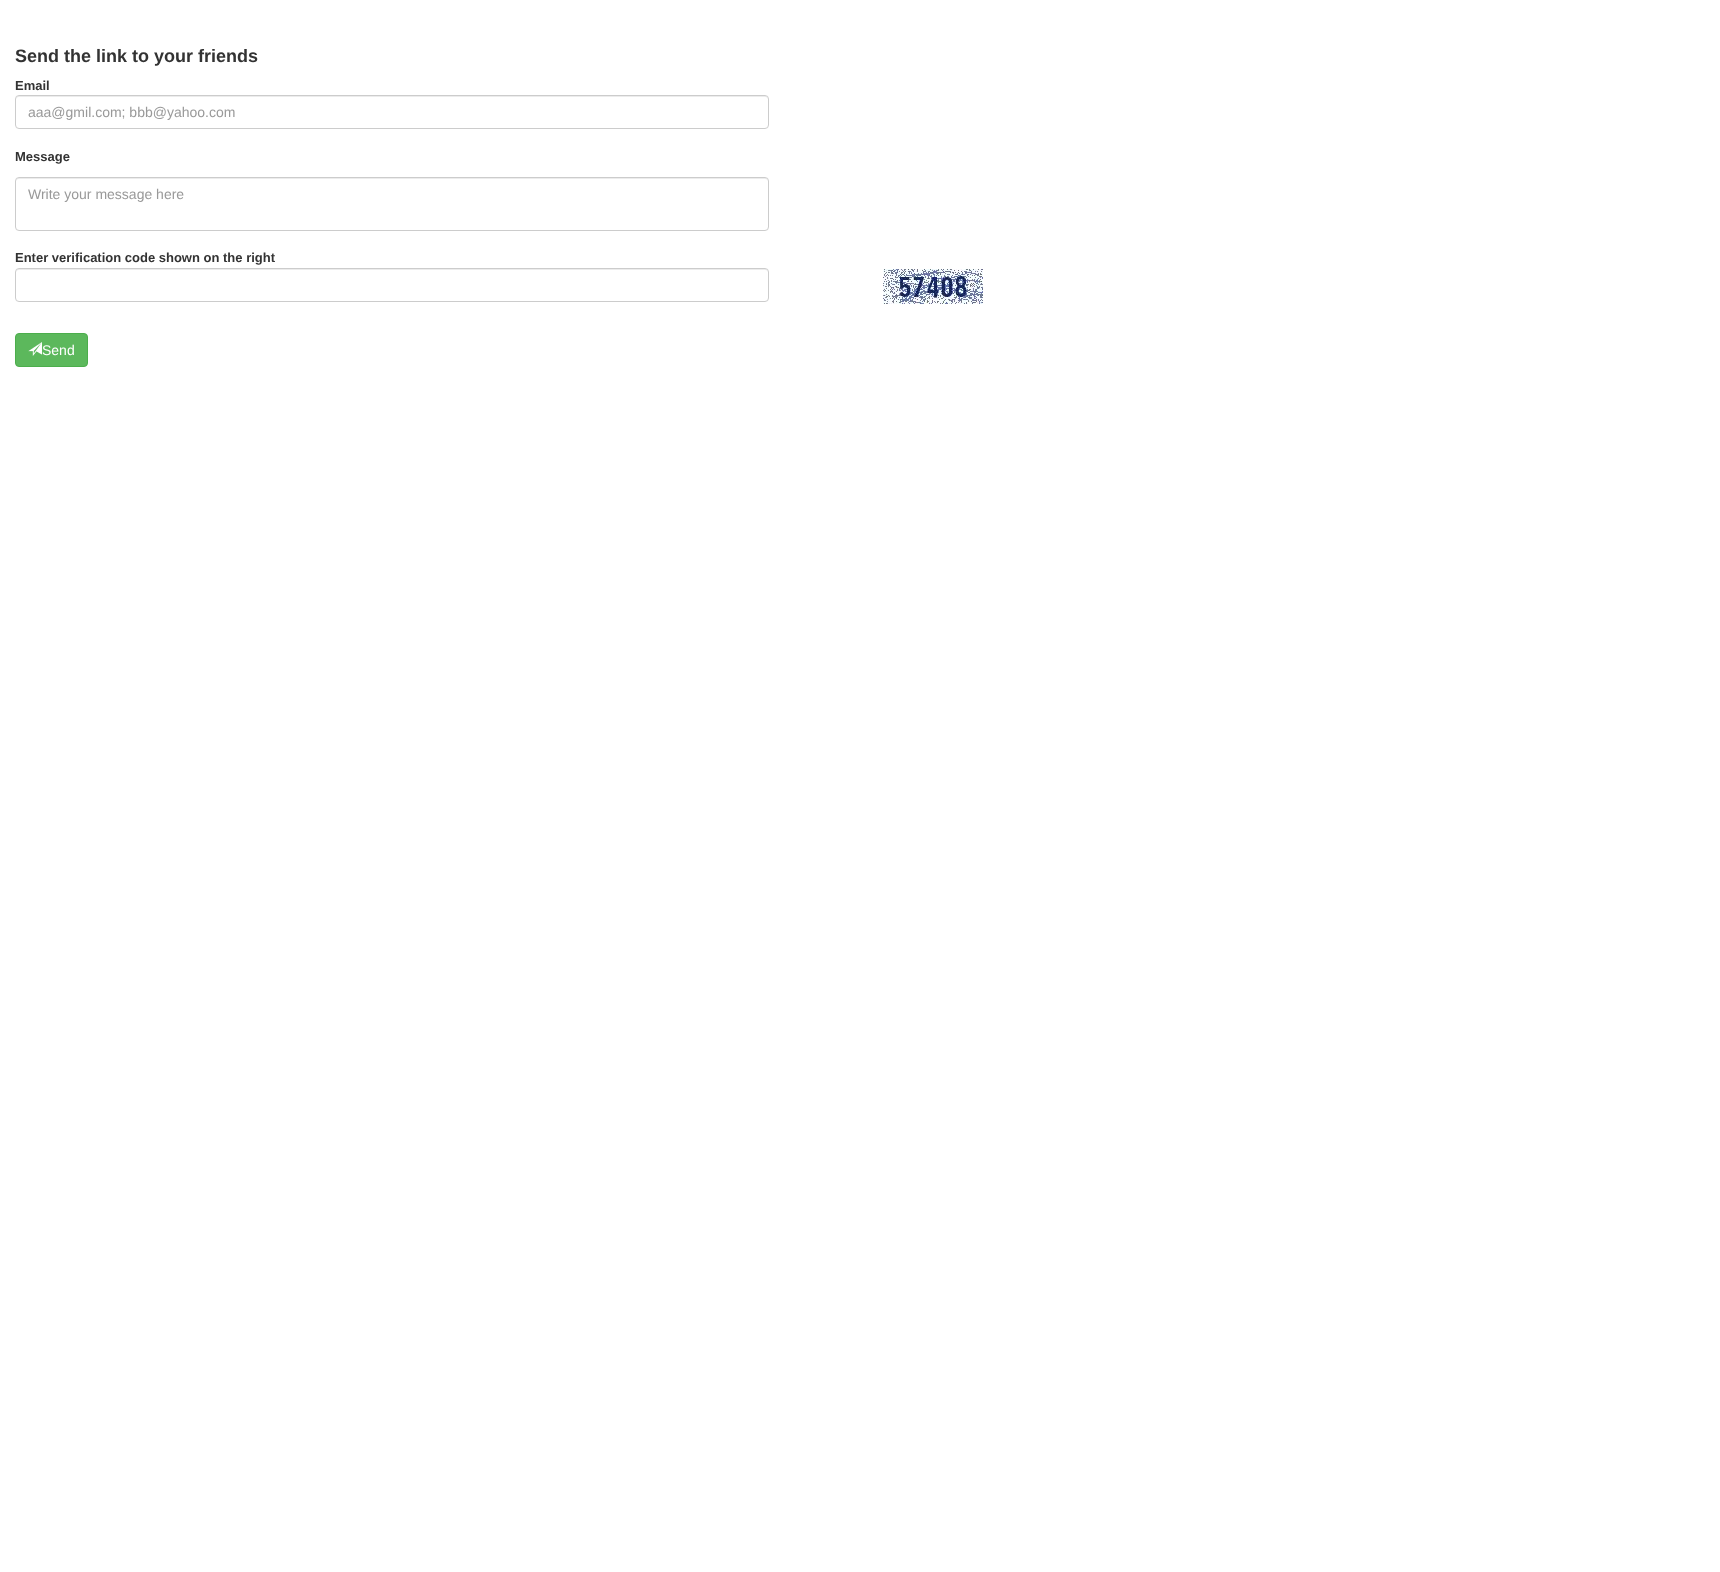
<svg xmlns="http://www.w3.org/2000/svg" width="1720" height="1572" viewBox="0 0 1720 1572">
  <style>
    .t1 { font: bold 18px Liberation Sans; fill: #333; }
    .t2 { font: bold 13px Liberation Sans; fill: #333; }
    .t3 { font: 14px Liberation Sans; fill: #999; }
    .t4 { font: 14px Liberation Sans; fill: #fff; }
  </style>
  <rect width="100%" height="100%" fill="#fff"/>
  <text x="15" y="62" class="t1">Send the link to your friends</text>
  <text x="15" y="90" class="t2">Email</text>
  <path d="M19 97H765C767 97 768 98 768 100C768 98 767 96 765 96H19C17 96 16 98 16 100C16 98 17 97 19 97Z" fill="#ececec"/>
  <rect x="15.5" y="95.5" width="753" height="33" rx="3.5" fill="none" stroke="#ccc"/>
  <text x="28" y="117" class="t3">aaa@gmil.com; bbb@yahoo.com</text>
  <text x="15" y="161" class="t2">Message</text>
  <path d="M19 179H765C767 179 768 180 768 182C768 180 767 178 765 178H19C17 178 16 180 16 182C16 180 17 179 19 179Z" fill="#ececec"/>
  <rect x="15.5" y="177.5" width="753" height="53" rx="3.5" fill="none" stroke="#ccc"/>
  <text x="28" y="199" class="t3">Write your message here</text>
  <text x="15" y="262" class="t2">Enter verification code shown on the right</text>
  <path d="M19 270H765C767 270 768 271 768 273C768 271 767 269 765 269H19C17 269 16 271 16 273C16 271 17 270 19 270Z" fill="#ececec"/>
  <rect x="15.5" y="268.5" width="753" height="33" rx="3.5" fill="none" stroke="#ccc"/>
  <image x="883" y="269" width="100" height="35" href="images/1.png"/>
  <rect x="15.5" y="333.5" width="72" height="33" rx="3.5" fill="#5cb85c" stroke="#4cae4c"/>
  <image x="28" y="342" width="14" height="14" href="images/2.png"/>
  <text x="42" y="355" class="t4">Send</text>
</svg>
